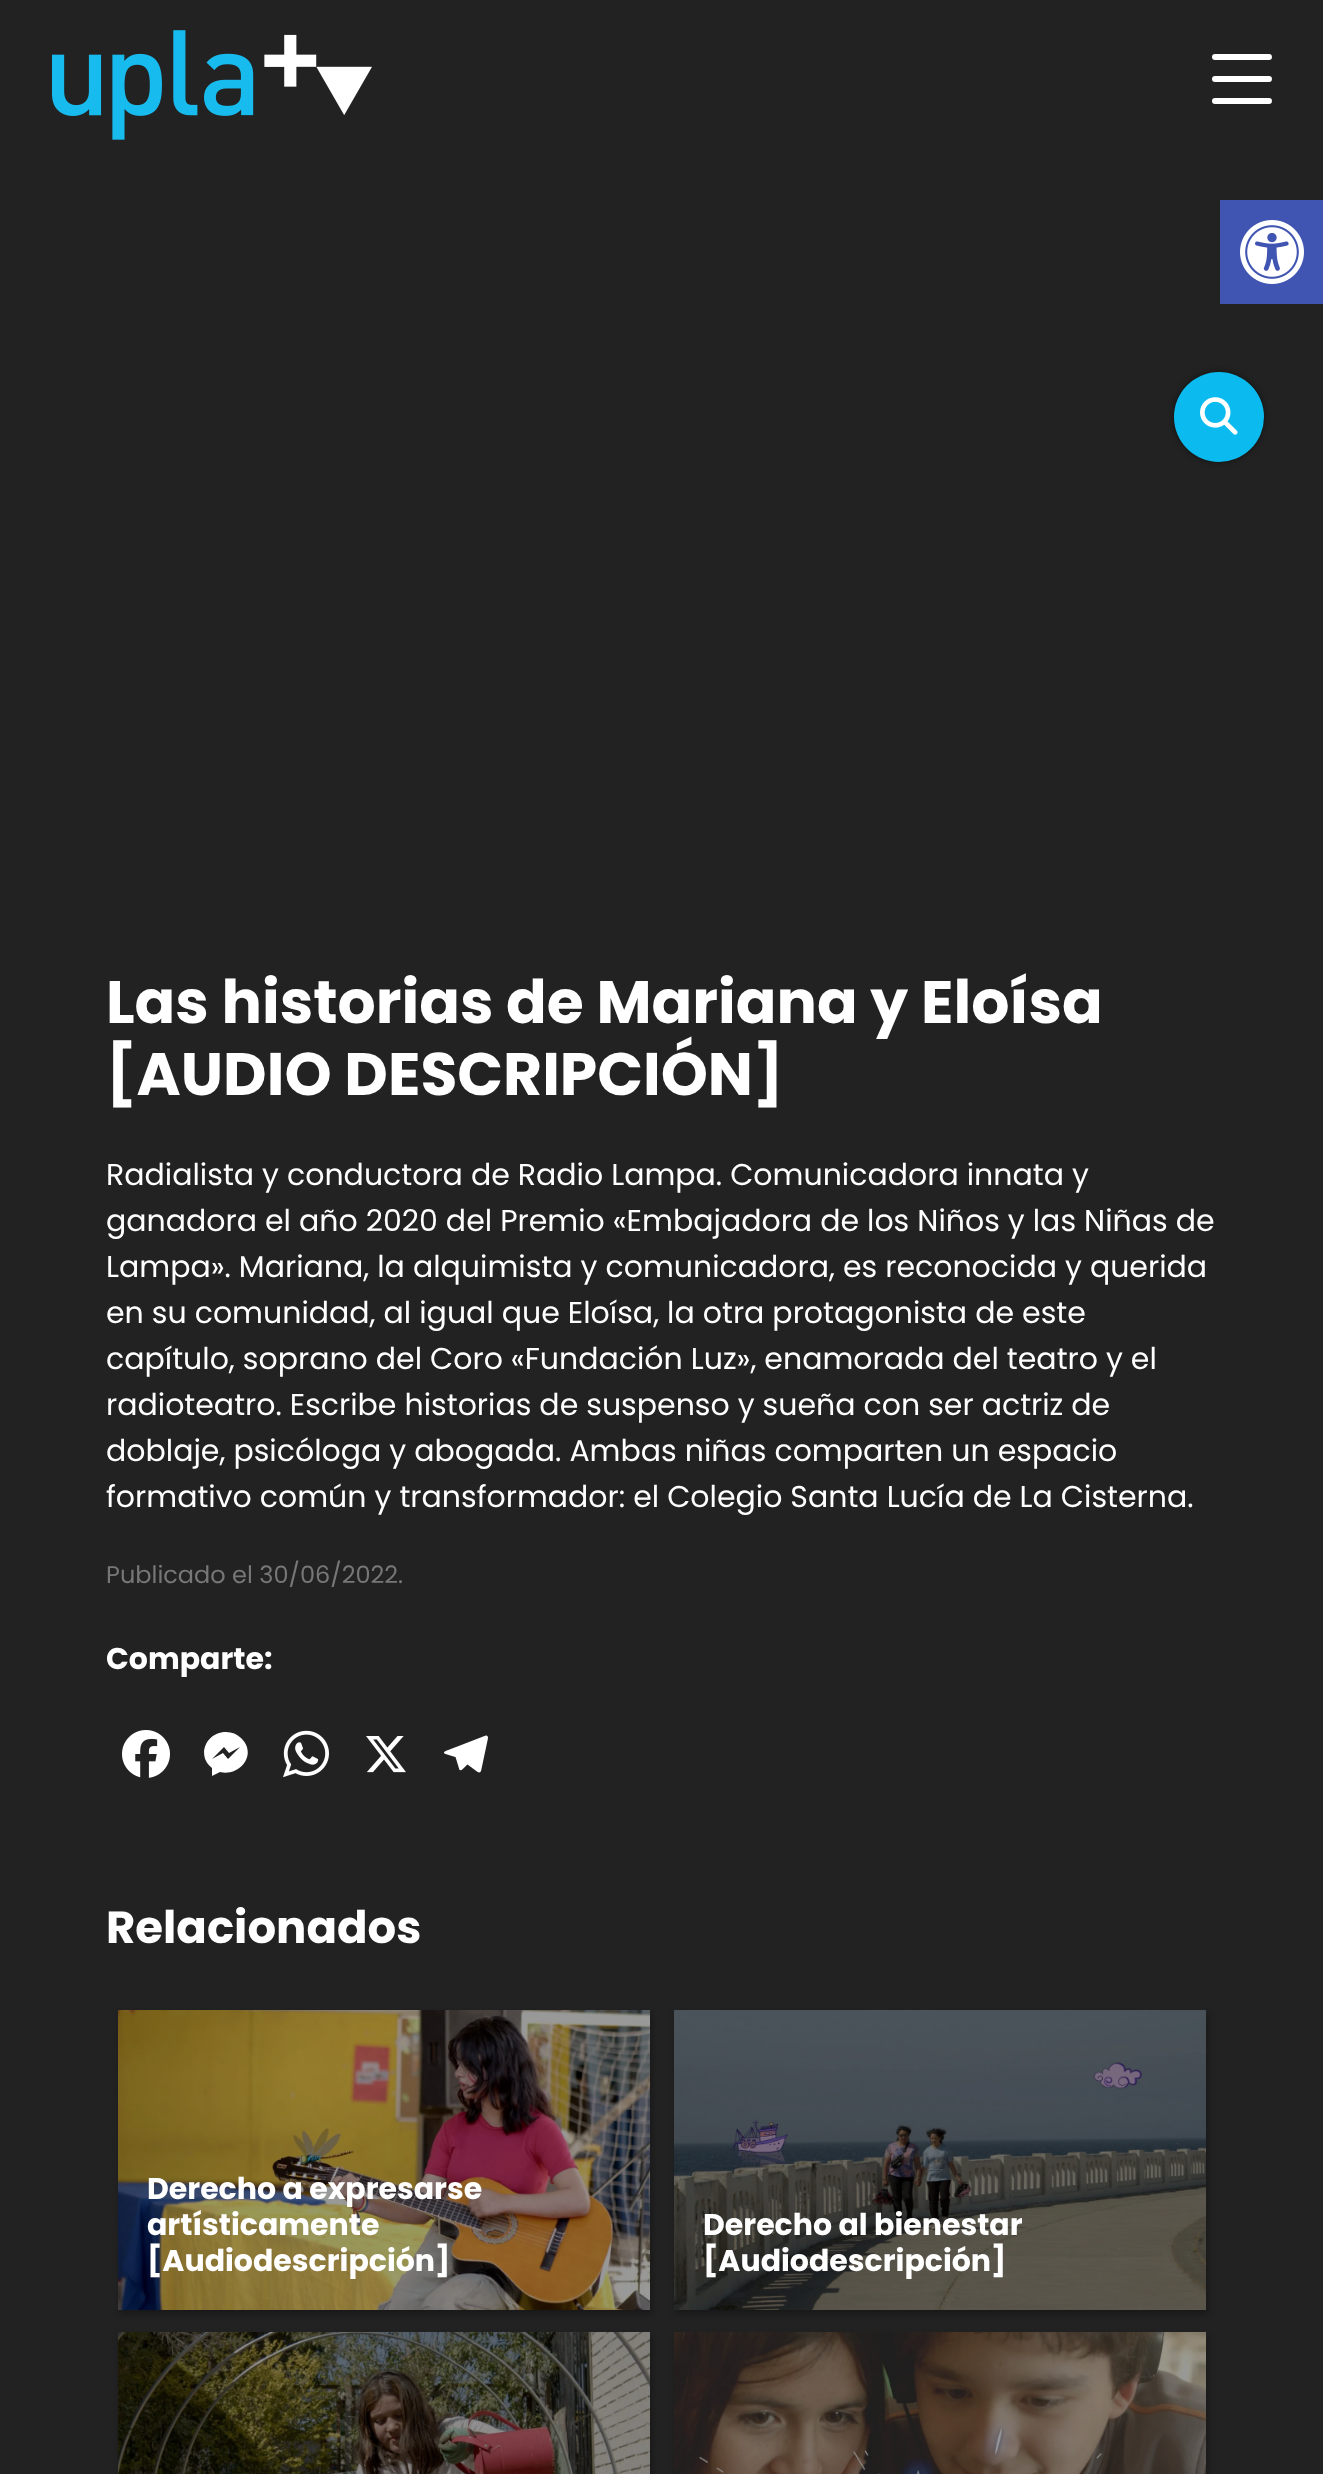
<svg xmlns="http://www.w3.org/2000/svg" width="1323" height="2474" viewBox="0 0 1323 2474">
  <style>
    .t1 { font: bold 60px Poppins; fill: #fff; }
    .t2 { font: 30px Poppins; fill: #fff; }
    .t3 { font: 24px Poppins; fill: #777; }
    .t4 { font: bold 30px Poppins; fill: #fff; }
    .t5 { font: bold 45px Poppins; fill: #fff; }
  </style>
  <rect width="100%" height="100%" fill="#222"/>
  <image x="52" y="30" width="320" height="110" href="images/1.png"/>
  <rect x="1212" y="54" width="60" height="6" rx="3" fill="#fff"/>
  <rect x="1212" y="76" width="60" height="6" rx="3" fill="#fff"/>
  <rect x="1212" y="98" width="60" height="6" rx="3" fill="#fff"/>
  <rect x="1220" y="200" width="103" height="104" fill="#4054b2"/>
  <image x="1240" y="220" width="64" height="64" href="images/2.png"/>
  <rect x="1174" y="372" width="90" height="90" rx="45" fill="#00000080" filter="blur(3px)"/>
  <circle cx="1219" cy="417" r="45" fill="#0bbbef"/>
  <image x="1200" y="397" width="38" height="38" href="images/3.png"/>
  <text x="106" y="1023" class="t1">Las historias de Mariana y Eloísa</text>
  <text x="106" y="1095" class="t1">[AUDIO DESCRIPCIÓN]</text>
  <text x="106" y="1185" class="t2">Radialista y conductora de Radio Lampa. Comunicadora innata y</text>
  <text x="106" y="1231" class="t2">ganadora el año 2020 del Premio «Embajadora de los Niños y las Niñas de</text>
  <text x="106" y="1277" class="t2">Lampa». Mariana, la alquimista y comunicadora, es reconocida y querida</text>
  <text x="106" y="1323" class="t2">en su comunidad, al igual que Eloísa, la otra protagonista de este</text>
  <text x="106" y="1369" class="t2">capítulo, soprano del Coro «Fundación Luz», enamorada del teatro y el</text>
  <text x="106" y="1415" class="t2">radioteatro. Escribe historias de suspenso y sueña con ser actriz de</text>
  <text x="106" y="1461" class="t2">doblaje, psicóloga y abogada. Ambas niñas comparten un espacio</text>
  <text x="106" y="1507" class="t2">formativo común y transformador: el Colegio Santa Lucía de La Cisterna.</text>
  <text x="106" y="1583" class="t3">Publicado el 30/06/2022.</text>
  <text x="106" y="1669" class="t4">Comparte:</text>
  <image x="122" y="1730" width="48" height="48" href="images/4.png"/>
  <path d="M226 1732C206 1732 196 1756 212 1768V1776L220 1772C240 1777 258 1754 241 1738C237 1734 232 1732 226 1732M228 1759L223 1753L212 1759L224 1747L229 1753L240 1747Z" fill="#fff"/>
  <image x="283" y="1730" width="46" height="48" href="images/5.png"/>
  <image x="366" y="1736" width="40" height="37" href="images/6.png"/>
  <image x="444" y="1735" width="44" height="38" href="images/7.png"/>
  <text x="106" y="1943" class="t5">Relacionados</text>
  <rect x="120" y="2014" width="532" height="300" fill="#0000004d" filter="blur(3px)"/>
  <image x="118" y="2010" width="532" height="300" href="images/8.png"/>
  <text x="147" y="2199" class="t4">Derecho a expresarse</text>
  <text x="147" y="2235" class="t4">artísticamente</text>
  <text x="147" y="2271" class="t4">[Audiodescripción]</text>
  <rect x="676" y="2014" width="532" height="300" fill="#0000004d" filter="blur(3px)"/>
  <image x="674" y="2010" width="532" height="300" href="images/9.png"/>
  <text x="703" y="2235" class="t4">Derecho al bienestar</text>
  <text x="703" y="2271" class="t4">[Audiodescripción]</text>
  <rect x="120" y="2336" width="532" height="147" fill="#0000004d" filter="blur(3px)"/>
  <image x="118" y="2332" width="532" height="142" href="images/10.png"/>
  <rect x="676" y="2336" width="532" height="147" fill="#0000004d" filter="blur(3px)"/>
  <image x="674" y="2332" width="532" height="142" href="images/11.png"/>
</svg>
